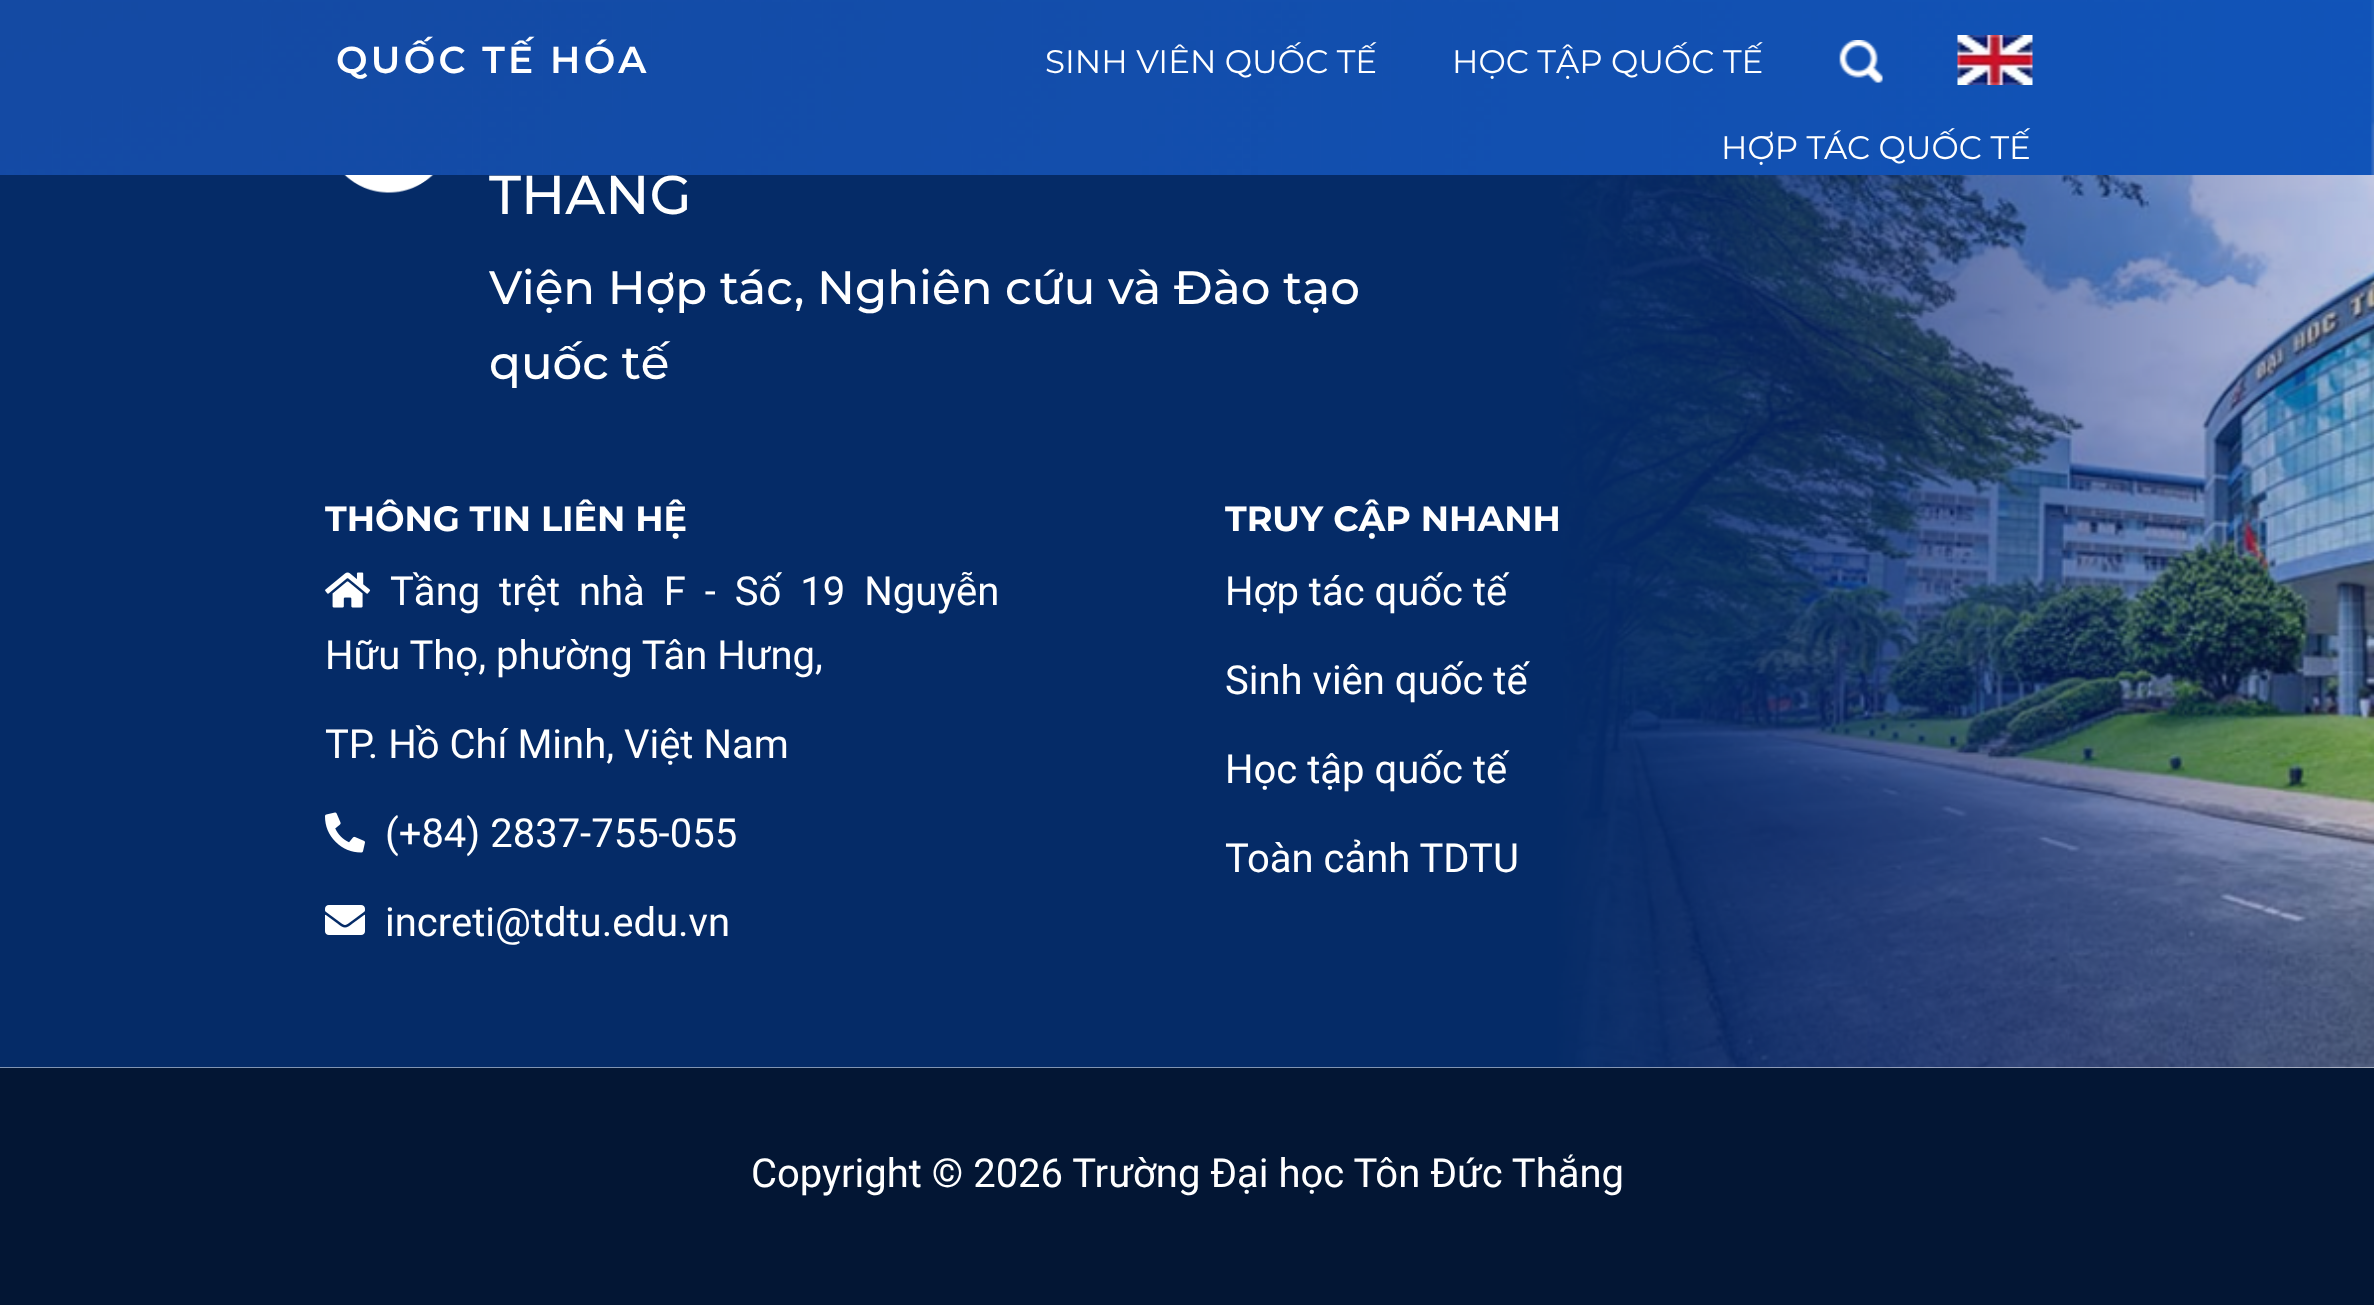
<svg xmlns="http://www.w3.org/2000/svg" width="2374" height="1305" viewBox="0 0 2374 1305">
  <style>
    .t1 { font: 500 54.5px Montserrat; fill: #fff; }
    .t2 { font: 600 37.5px Montserrat; letter-spacing: 3.25px; fill: #fff; }
    .t3 { font: 32.5px Montserrat; fill: #fff; }
    .t4 { font: 500 46.75px Montserrat; fill: #fff; }
    .t5 { font: bold 35px Montserrat; fill: #fff; }
    .t6 { font: 40px Roboto; fill: #fff; }
  </style>
  <rect width="100%" height="100%" fill="#fff"/>
  <image x="0" y="0" width="2374" height="1068" href="images/4.png"/>
  <text x="489" y="214" class="t1">THẮNG</text>
  <image x="0" y="0" width="2374" height="175" href="images/1.png"/>
  <text x="336" y="73" class="t2">QUỐC TẾ HÓA</text>
  <text x="1045" y="73" class="t3">SINH VIÊN QUỐC TẾ</text>
  <text x="1452" y="73" class="t3">HỌC TẬP QUỐC TẾ</text>
  <image x="1839" y="40" width="44" height="43" href="images/2.png"/>
  <image x="1957" y="35" width="76" height="50" href="images/3.png"/>
  <text x="1721" y="159" class="t3">HỢP TÁC QUỐC TẾ</text>
  <image x="344" y="175" width="90" height="18" href="images/5.png"/>
  <text x="489" y="304" class="t4">Viện Hợp tác, Nghiên cứu và Đào tạo</text>
  <text x="489" y="379" class="t4">quốc tế</text>
  <text x="325" y="531" class="t5">THÔNG TIN LIÊN HỆ</text>
  <image x="325" y="572" width="46" height="36" href="images/6.png"/>
  <text x="390" y="605" word-spacing="9" class="t6">Tầng trệt nhà F - Số 19 Nguyễn</text>
  <text x="325" y="669" class="t6">Hữu Thọ, phường Tân Hưng,</text>
  <text x="325" y="758" class="t6">TP. Hồ Chí Minh, Việt Nam</text>
  <image x="325" y="812" width="40" height="41" href="images/7.png"/>
  <text x="385" y="847" class="t6">(+84) 2837-755-055</text>
  <image x="325" y="905" width="40" height="30" href="images/8.png"/>
  <text x="385" y="936" class="t6">increti@tdtu.edu.vn</text>
  <text x="1225" y="531" class="t5">TRUY CẬP NHANH</text>
  <text x="1225" y="605" class="t6">Hợp tác quốc tế</text>
  <text x="1225" y="694" class="t6">Sinh viên quốc tế</text>
  <text x="1225" y="783" class="t6">Học tập quốc tế</text>
  <text x="1225" y="872" class="t6">Toàn cảnh TDTU</text>
  <rect x="0" y="1068" width="2374" height="237" fill="#031634"/>
  <text x="751" y="1187" class="t6">Copyright © 2026 Trường Đại học Tôn Đức Thắng</text>
</svg>
